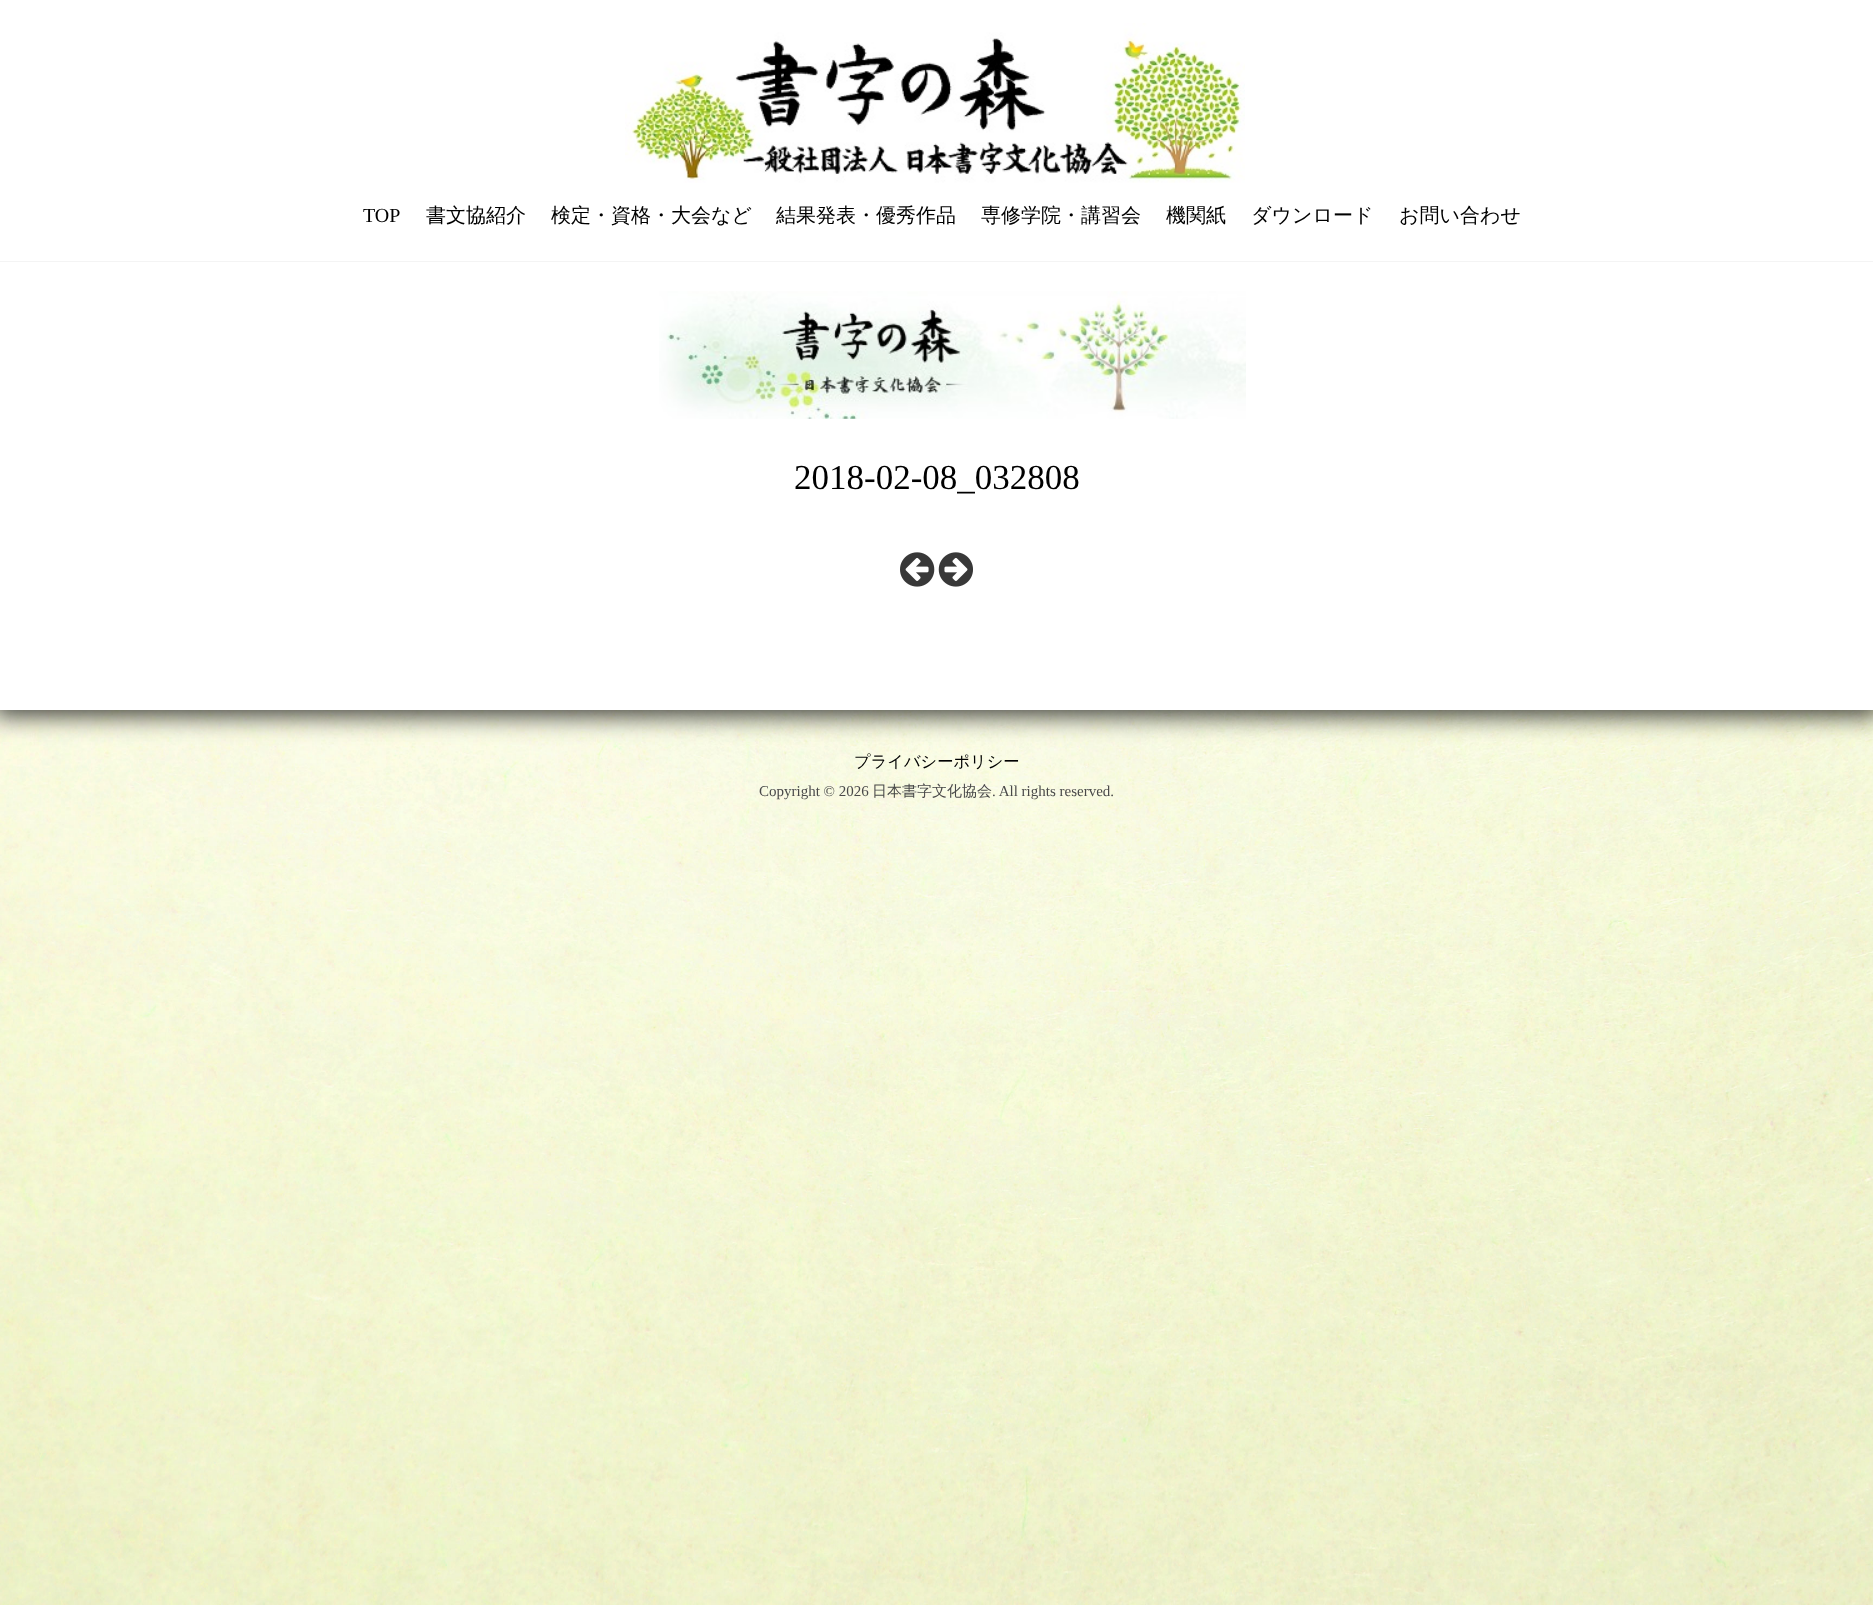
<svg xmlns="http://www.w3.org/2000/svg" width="1873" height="1605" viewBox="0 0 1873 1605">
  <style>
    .t1 { font: 20px Liberation Serif; fill: #000; }
    .t2 { font: 500 20px WenQuanYi Zen Hei; fill: #000; }
    .t3 { font: 35px Liberation Serif; fill: #000; }
    .t4 { font: 500 16.25px WenQuanYi Zen Hei; fill: #000; }
    .t5 { font: 15px Liberation Serif; fill: #494949; }
    .t6 { font: 500 15px WenQuanYi Zen Hei; fill: #494949; }
  </style>
  <rect width="100%" height="100%" fill="#fff"/>
  <image x="0" y="710" width="1873" height="895" href="images/1.png"/>
  <rect x="-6" y="-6" width="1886" height="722" fill="#000000bf" filter="blur(12.5px)"/>
  <rect x="0" y="0" width="1873" height="710" fill="#fff"/>
  <rect x="0" y="261" width="1873" height="1" fill="#f4f4f4"/>
  <image x="625" y="23" width="620" height="160" href="images/2.png"/>
  <text x="363" y="222" class="t1">TOP</text>
  <text x="426" y="222" class="t2">書文協紹介</text>
  <text x="551" y="222" class="t2">検定・資格・大会など</text>
  <text x="776" y="222" class="t2">結果発表・優秀作品</text>
  <text x="981" y="222" class="t2">専修学院・講習会</text>
  <text x="1166" y="222" class="t2">機関紙</text>
  <text x="1251" y="222" class="t2">ダウンロード</text>
  <text x="1399" y="222" class="t2">お問い合わせ</text>
  <image x="659" y="291" width="587" height="128" href="images/3.png"/>
  <text x="794" y="489" class="t3">2018-02-08_032808</text>
  <image x="900" y="552" width="35" height="35" href="images/4.png"/>
  <image x="938" y="552" width="35" height="35" href="images/5.png"/>
  <text x="854" y="767" class="t4">プライバシーポリシー</text>
  <text x="759" y="796" class="t5">Copyright © 2026</text>
  <text x="872" y="796" class="t6">日本書字文化協会</text>
  <text x="992" y="796" class="t5">. All rights reserved.</text>
</svg>
